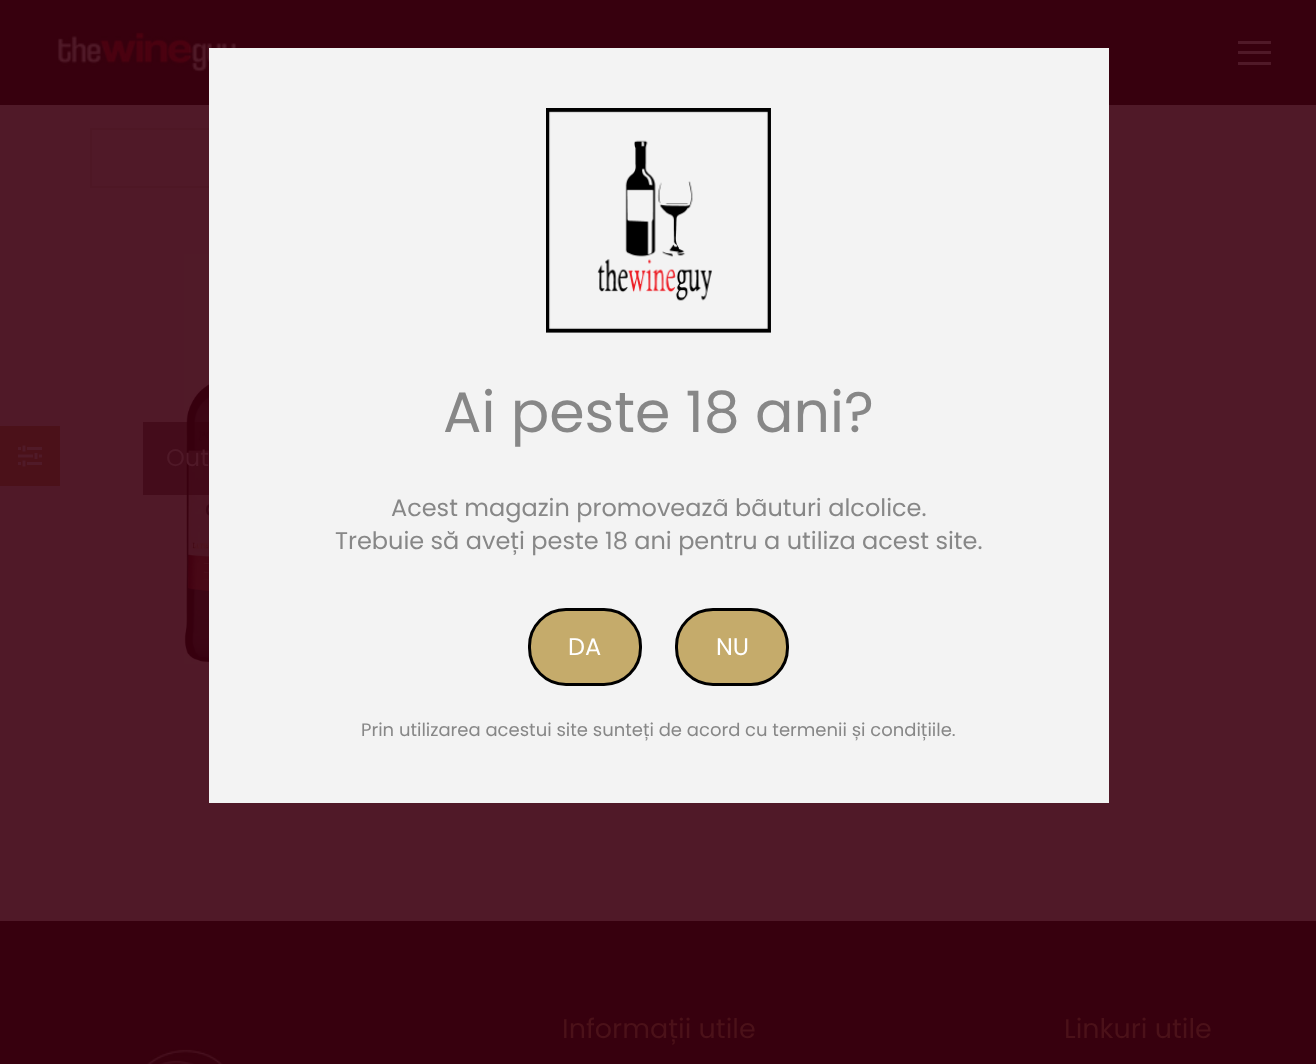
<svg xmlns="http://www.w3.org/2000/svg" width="1316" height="1064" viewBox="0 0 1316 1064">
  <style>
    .t1 { font: 57px Poppins; fill: #878787; }
    .t2 { font: 24px Poppins; fill: #878787; }
    .t3 { font: 24px Poppins; fill: #fff; }
    .t4 { font: 18px Poppins; fill: #878787; }
    .t5 { font: 24px Poppins; fill: #501928; }
    .t6 { font: 27px Poppins; fill: #4b1119; }
  </style>
  <rect width="100%" height="100%" fill="#501928"/>
  <rect x="0" y="0" width="1316" height="105" fill="#37000e"/>
  <image x="57" y="32" width="180" height="40" href="images/2.png"/>
  <rect x="91" y="129" width="540" height="58" fill="none" stroke="#4e1725" stroke-width="2"/>
  <rect x="209" y="48" width="900" height="755" fill="#f3f3f3"/>
  <image x="546" y="108" width="225" height="225" href="images/1.png"/>
  <text x="443" y="432" class="t1">Ai peste 18 ani?</text>
  <text x="391" y="516" class="t2">Acest magazin promoveazã bãuturi alcolice.</text>
  <text x="335" y="549" class="t2">Trebuie să aveți peste 18 ani pentru a utiliza acest site.</text>
  <rect x="529.5" y="609.5" width="111" height="75" rx="36.5" fill="#c5ab6b" stroke="#000" stroke-width="3"/>
  <text x="568" y="655" class="t3">DA</text>
  <rect x="676.5" y="609.5" width="111" height="75" rx="36.5" fill="#c5ab6b" stroke="#000" stroke-width="3"/>
  <text x="716" y="655" class="t3">NU</text>
  <text x="361" y="736" class="t4">Prin utilizarea acestui site sunteți de acord cu termenii și condițiile.</text>
  <rect x="1238" y="41" width="33" height="3" fill="#501928"/>
  <rect x="1238" y="51" width="33" height="3" fill="#501928"/>
  <rect x="1238" y="62" width="33" height="3" fill="#501928"/>
  <rect x="0" y="426" width="60" height="60" fill="#4b1119"/>
  <image x="18" y="445" width="24" height="22" href="images/3.png"/>
  <image x="184" y="254" width="25" height="410" href="images/4.png"/>
  <rect x="143" y="422" width="66" height="73" fill="#37000e80"/>
  <text x="166" y="466" class="t5">Out</text>
  <rect x="0" y="921" width="1316" height="143" fill="#37000e"/>
  <text x="562" y="1038" class="t6">Informații utile</text>
  <text x="1064" y="1038" class="t6">Linkuri utile</text>
  <image x="147" y="1049" width="76" height="15" href="images/5.png"/>
</svg>
